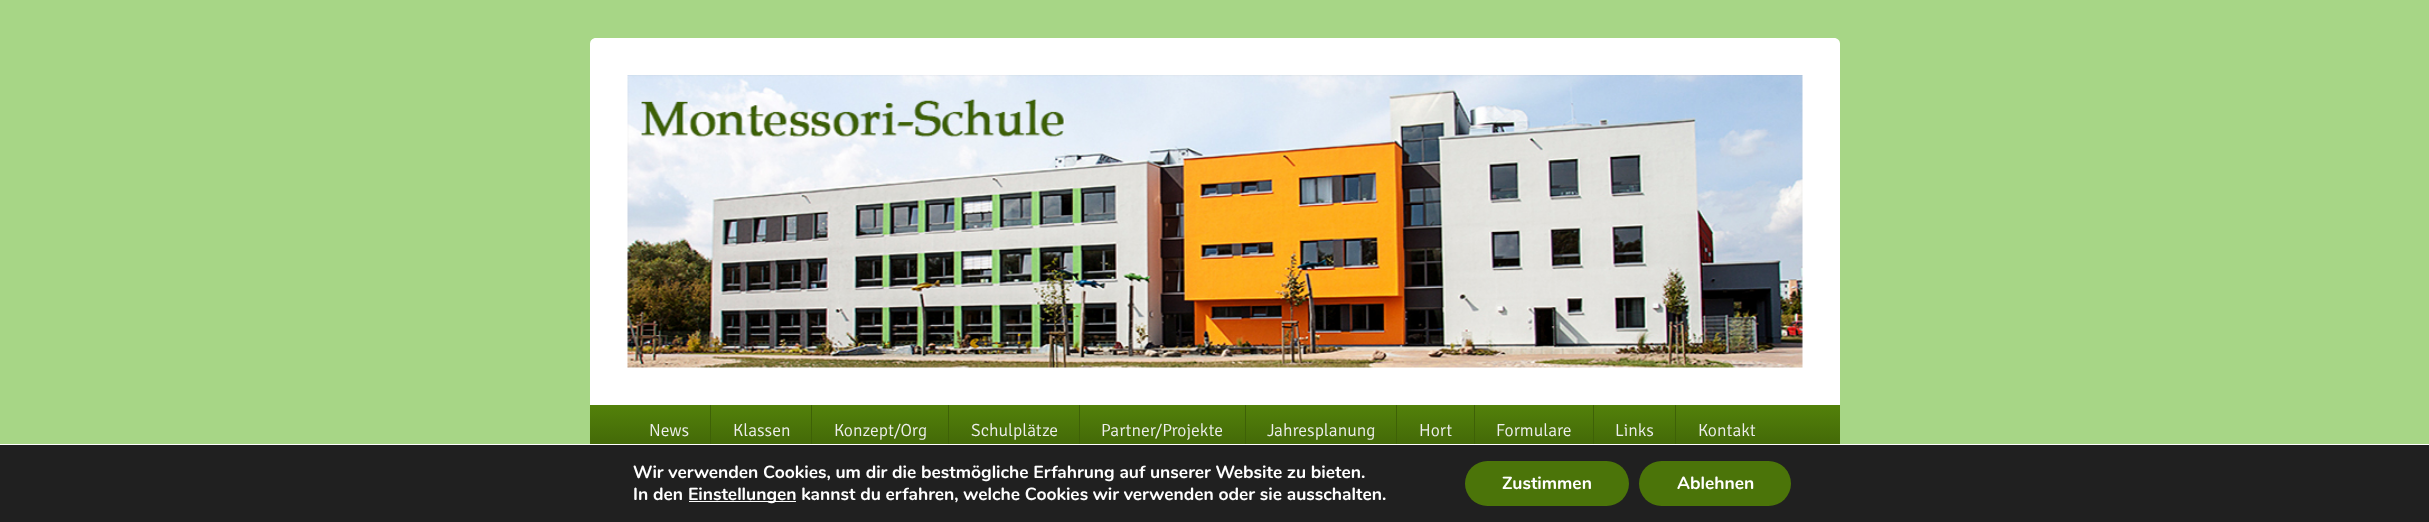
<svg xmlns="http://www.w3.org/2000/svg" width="2429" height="522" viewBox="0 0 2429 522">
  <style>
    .t1 { font: 300 17.5px Signika; fill: #eee; }
    .t2 { font: bold 17.5px Nunito; fill: #fff; }
  </style>
  <defs>
    <linearGradient id="g1" gradientUnits="userSpaceOnUse" x1="1215" y1="405" x2="1215" y2="458"><stop offset="0" stop-color="#53810a"/><stop offset="1" stop-color="#3e6107"/></linearGradient>
  </defs>
  <rect width="100%" height="100%" fill="#a7d686"/>
  <path d="M596 38H1834C1837.5 38 1840 40.5 1840 44V459H590V44C590 40.5 592.5 38 596 38Z" fill="#fff"/>
  <image x="627" y="75" width="1176" height="293" href="images/1.png"/>
  <rect x="590" y="405" width="1250" height="39" fill="url(#g1)"/>
  <text x="649" y="436" class="t1">News</text>
  <rect x="710" y="405" width="1" height="39" fill="#3e6107"/>
  <text x="733" y="436" class="t1">Klassen</text>
  <rect x="811" y="405" width="1" height="39" fill="#3e6107"/>
  <text x="834" y="436" class="t1">Konzept/Org</text>
  <rect x="948" y="405" width="1" height="39" fill="#3e6107"/>
  <text x="971" y="436" class="t1">Schulplätze</text>
  <rect x="1079" y="405" width="1" height="39" fill="#3e6107"/>
  <text x="1101" y="436" class="t1">Partner/Projekte</text>
  <rect x="1245" y="405" width="1" height="39" fill="#3e6107"/>
  <text x="1267" y="436" class="t1">Jahresplanung</text>
  <rect x="1396" y="405" width="1" height="39" fill="#3e6107"/>
  <text x="1419" y="436" class="t1">Hort</text>
  <rect x="1474" y="405" width="1" height="39" fill="#3e6107"/>
  <text x="1496" y="436" class="t1">Formulare</text>
  <rect x="1593" y="405" width="1" height="39" fill="#3e6107"/>
  <text x="1615" y="436" class="t1">Links</text>
  <rect x="1675" y="405" width="1" height="39" fill="#3e6107"/>
  <text x="1698" y="436" class="t1">Kontakt</text>
  <rect x="0" y="445" width="2429" height="77" fill="#202020"/>
  <rect x="0" y="444" width="2429" height="1" fill="#fff"/>
  <text x="633" y="478" class="t2">Wir verwenden Cookies, um dir die bestmögliche Erfahrung auf unserer Website zu bieten.</text>
  <text x="633" y="500" class="t2">In den</text>
  <rect x="689" y="501" width="107" height="1" fill="#fff"/>
  <text x="688" y="500" class="t2">Einstellungen kannst du erfahren, welche Cookies wir verwenden oder sie ausschalten.</text>
  <rect x="1465" y="461" width="164" height="45" rx="22.5" fill="#4b7409"/>
  <text x="1502" y="489" class="t2">Zustimmen</text>
  <rect x="1639" y="461" width="152" height="45" rx="22.5" fill="#4b7409"/>
  <text x="1677" y="489" class="t2">Ablehnen</text>
</svg>
